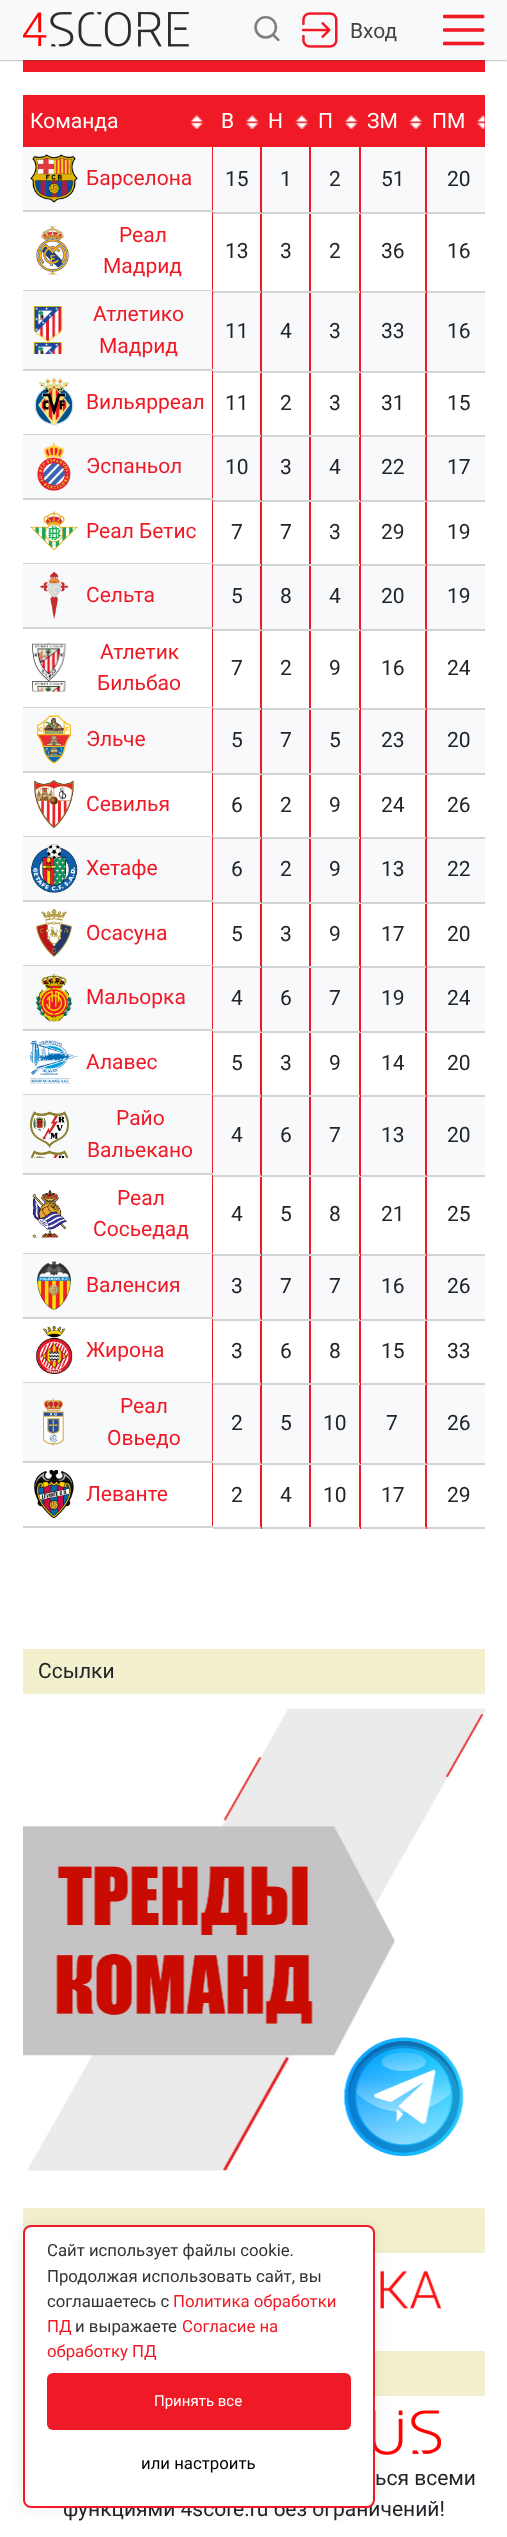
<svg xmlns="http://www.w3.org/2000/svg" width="507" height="2537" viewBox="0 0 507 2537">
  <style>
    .t1 { font: 21px Roboto; fill: #444; }
    .t2 { font: 21px Roboto; fill: #fff; }
    .t3 { font: 21px Roboto; fill: #ef1a25; }
    .t4 { font: 21px Roboto; fill: #212529; }
    .t5 { font: 16.75px Roboto; fill: #333; }
    .t6 { font: 16.75px Roboto; fill: #ef1a25; }
    .t7 { font: 15px Roboto; fill: #fff; }
    .t8 { font: 16.75px Roboto; fill: #000; }
  </style>
  <rect width="100%" height="100%" fill="#fff"/>
  <rect x="23" y="60" width="462" height="12" fill="#ef1a25"/>
  <rect x="0" y="0" width="507" height="60" fill="#323232bf" filter="blur(1px)"/>
  <rect x="0" y="0" width="507" height="60" fill="#f8f9fa"/>
  <image x="23" y="12" width="166" height="35" href="images/1.png"/>
  <image x="254" y="15" width="26" height="27" href="images/2.png"/>
  <image x="302" y="12" width="36" height="36" href="images/3.png"/>
  <text x="350" y="38" class="t1">Вход</text>
  <image x="443" y="14" width="42" height="32" href="images/4.png"/>
  <rect x="23" y="95" width="462" height="52" fill="#ef1a25"/>
  <image x="190" y="115" width="13" height="14" href="images/5.png"/>
  <text x="30" y="128" class="t2">Команда</text>
  <image x="245" y="115" width="14" height="14" href="images/6.png"/>
  <text x="221" y="128" class="t2">В</text>
  <image x="295" y="115" width="13" height="14" href="images/7.png"/>
  <text x="268" y="128" class="t2">Н</text>
  <image x="344" y="115" width="14" height="14" href="images/6.png"/>
  <text x="318" y="128" class="t2">П</text>
  <image x="409" y="115" width="13" height="14" href="images/7.png"/>
  <text x="367" y="128" class="t2">ЗМ</text>
  <image x="476" y="115" width="9" height="14" href="images/8.png"/>
  <text x="432" y="128" class="t2">ПМ</text>
  <rect x="23" y="147" width="189" height="63" fill="#f8f9fa"/>
  <rect x="212" y="147" width="1" height="1380" fill="#ef1a25"/>
  <rect x="23" y="210" width="190" height="2" fill="#d3d3d3"/>
  <image x="30" y="154" width="48" height="49" href="images/9.png"/>
  <text x="86" y="185" class="t3">Барселона</text>
  <rect x="213" y="147" width="47" height="65" fill="#f8f9fa"/>
  <rect x="425" y="1527" width="60" height="2" fill="#d3d3d3"/>
  <rect x="425" y="1463" width="2" height="66" fill="#ef1a25"/>
  <rect x="425" y="1463" width="60" height="2" fill="#d3d3d3"/>
  <rect x="425" y="1383" width="2" height="81" fill="#ef1a25"/>
  <rect x="425" y="1383" width="60" height="2" fill="#d3d3d3"/>
  <rect x="425" y="1319" width="2" height="66" fill="#ef1a25"/>
  <rect x="425" y="1319" width="60" height="2" fill="#d3d3d3"/>
  <rect x="425" y="1254" width="2" height="66" fill="#ef1a25"/>
  <rect x="425" y="1254" width="60" height="2" fill="#d3d3d3"/>
  <rect x="425" y="1175" width="2" height="81" fill="#ef1a25"/>
  <rect x="425" y="1175" width="60" height="2" fill="#d3d3d3"/>
  <rect x="425" y="1095" width="2" height="81" fill="#ef1a25"/>
  <rect x="425" y="1095" width="60" height="2" fill="#d3d3d3"/>
  <rect x="425" y="1031" width="2" height="66" fill="#ef1a25"/>
  <rect x="425" y="1031" width="60" height="2" fill="#d3d3d3"/>
  <rect x="425" y="966" width="2" height="66" fill="#ef1a25"/>
  <rect x="425" y="966" width="60" height="2" fill="#d3d3d3"/>
  <rect x="425" y="902" width="2" height="66" fill="#ef1a25"/>
  <rect x="425" y="902" width="60" height="2" fill="#d3d3d3"/>
  <rect x="425" y="837" width="2" height="66" fill="#ef1a25"/>
  <rect x="425" y="837" width="60" height="2" fill="#d3d3d3"/>
  <rect x="425" y="773" width="2" height="66" fill="#ef1a25"/>
  <rect x="425" y="773" width="60" height="2" fill="#d3d3d3"/>
  <rect x="425" y="708" width="2" height="66" fill="#ef1a25"/>
  <rect x="425" y="708" width="60" height="2" fill="#d3d3d3"/>
  <rect x="425" y="629" width="2" height="81" fill="#ef1a25"/>
  <rect x="425" y="629" width="60" height="2" fill="#d3d3d3"/>
  <rect x="425" y="564" width="2" height="66" fill="#ef1a25"/>
  <rect x="425" y="564" width="60" height="2" fill="#d3d3d3"/>
  <rect x="425" y="500" width="2" height="66" fill="#ef1a25"/>
  <rect x="425" y="500" width="60" height="2" fill="#d3d3d3"/>
  <rect x="425" y="435" width="2" height="66" fill="#ef1a25"/>
  <rect x="425" y="435" width="60" height="2" fill="#d3d3d3"/>
  <rect x="425" y="371" width="2" height="66" fill="#ef1a25"/>
  <rect x="425" y="371" width="60" height="2" fill="#d3d3d3"/>
  <rect x="425" y="291" width="2" height="81" fill="#ef1a25"/>
  <rect x="425" y="291" width="60" height="2" fill="#d3d3d3"/>
  <rect x="425" y="212" width="2" height="81" fill="#ef1a25"/>
  <rect x="425" y="212" width="60" height="2" fill="#d3d3d3"/>
  <rect x="425" y="147" width="2" height="66" fill="#ef1a25"/>
  <rect x="359" y="1527" width="67" height="2" fill="#d3d3d3"/>
  <rect x="359" y="1463" width="2" height="66" fill="#ef1a25"/>
  <rect x="359" y="1463" width="67" height="2" fill="#d3d3d3"/>
  <rect x="359" y="1383" width="2" height="81" fill="#ef1a25"/>
  <rect x="359" y="1383" width="67" height="2" fill="#d3d3d3"/>
  <rect x="359" y="1319" width="2" height="66" fill="#ef1a25"/>
  <rect x="359" y="1319" width="67" height="2" fill="#d3d3d3"/>
  <rect x="359" y="1254" width="2" height="66" fill="#ef1a25"/>
  <rect x="359" y="1254" width="67" height="2" fill="#d3d3d3"/>
  <rect x="359" y="1175" width="2" height="81" fill="#ef1a25"/>
  <rect x="359" y="1175" width="67" height="2" fill="#d3d3d3"/>
  <rect x="359" y="1095" width="2" height="81" fill="#ef1a25"/>
  <rect x="359" y="1095" width="67" height="2" fill="#d3d3d3"/>
  <rect x="359" y="1031" width="2" height="66" fill="#ef1a25"/>
  <rect x="359" y="1031" width="67" height="2" fill="#d3d3d3"/>
  <rect x="359" y="966" width="2" height="66" fill="#ef1a25"/>
  <rect x="359" y="966" width="67" height="2" fill="#d3d3d3"/>
  <rect x="359" y="902" width="2" height="66" fill="#ef1a25"/>
  <rect x="359" y="902" width="67" height="2" fill="#d3d3d3"/>
  <rect x="359" y="837" width="2" height="66" fill="#ef1a25"/>
  <rect x="359" y="837" width="67" height="2" fill="#d3d3d3"/>
  <rect x="359" y="773" width="2" height="66" fill="#ef1a25"/>
  <rect x="359" y="773" width="67" height="2" fill="#d3d3d3"/>
  <rect x="359" y="708" width="2" height="66" fill="#ef1a25"/>
  <rect x="359" y="708" width="67" height="2" fill="#d3d3d3"/>
  <rect x="359" y="629" width="2" height="81" fill="#ef1a25"/>
  <rect x="359" y="629" width="67" height="2" fill="#d3d3d3"/>
  <rect x="359" y="564" width="2" height="66" fill="#ef1a25"/>
  <rect x="359" y="564" width="67" height="2" fill="#d3d3d3"/>
  <rect x="359" y="500" width="2" height="66" fill="#ef1a25"/>
  <rect x="359" y="500" width="67" height="2" fill="#d3d3d3"/>
  <rect x="359" y="435" width="2" height="66" fill="#ef1a25"/>
  <rect x="359" y="435" width="67" height="2" fill="#d3d3d3"/>
  <rect x="359" y="371" width="2" height="66" fill="#ef1a25"/>
  <rect x="359" y="371" width="67" height="2" fill="#d3d3d3"/>
  <rect x="359" y="291" width="2" height="81" fill="#ef1a25"/>
  <rect x="359" y="291" width="67" height="2" fill="#d3d3d3"/>
  <rect x="359" y="212" width="2" height="81" fill="#ef1a25"/>
  <rect x="359" y="212" width="67" height="2" fill="#d3d3d3"/>
  <rect x="359" y="147" width="2" height="66" fill="#ef1a25"/>
  <rect x="309" y="1527" width="51" height="2" fill="#d3d3d3"/>
  <rect x="309" y="1463" width="2" height="66" fill="#ef1a25"/>
  <rect x="309" y="1463" width="51" height="2" fill="#d3d3d3"/>
  <rect x="309" y="1383" width="2" height="81" fill="#ef1a25"/>
  <rect x="309" y="1383" width="51" height="2" fill="#d3d3d3"/>
  <rect x="309" y="1319" width="2" height="66" fill="#ef1a25"/>
  <rect x="309" y="1319" width="51" height="2" fill="#d3d3d3"/>
  <rect x="309" y="1254" width="2" height="66" fill="#ef1a25"/>
  <rect x="309" y="1254" width="51" height="2" fill="#d3d3d3"/>
  <rect x="309" y="1175" width="2" height="81" fill="#ef1a25"/>
  <rect x="309" y="1175" width="51" height="2" fill="#d3d3d3"/>
  <rect x="309" y="1095" width="2" height="81" fill="#ef1a25"/>
  <rect x="309" y="1095" width="51" height="2" fill="#d3d3d3"/>
  <rect x="309" y="1031" width="2" height="66" fill="#ef1a25"/>
  <rect x="309" y="1031" width="51" height="2" fill="#d3d3d3"/>
  <rect x="309" y="966" width="2" height="66" fill="#ef1a25"/>
  <rect x="309" y="966" width="51" height="2" fill="#d3d3d3"/>
  <rect x="309" y="902" width="2" height="66" fill="#ef1a25"/>
  <rect x="309" y="902" width="51" height="2" fill="#d3d3d3"/>
  <rect x="309" y="837" width="2" height="66" fill="#ef1a25"/>
  <rect x="309" y="837" width="51" height="2" fill="#d3d3d3"/>
  <rect x="309" y="773" width="2" height="66" fill="#ef1a25"/>
  <rect x="309" y="773" width="51" height="2" fill="#d3d3d3"/>
  <rect x="309" y="708" width="2" height="66" fill="#ef1a25"/>
  <rect x="309" y="708" width="51" height="2" fill="#d3d3d3"/>
  <rect x="309" y="629" width="2" height="81" fill="#ef1a25"/>
  <rect x="309" y="629" width="51" height="2" fill="#d3d3d3"/>
  <rect x="309" y="564" width="2" height="66" fill="#ef1a25"/>
  <rect x="309" y="564" width="51" height="2" fill="#d3d3d3"/>
  <rect x="309" y="500" width="2" height="66" fill="#ef1a25"/>
  <rect x="309" y="500" width="51" height="2" fill="#d3d3d3"/>
  <rect x="309" y="435" width="2" height="66" fill="#ef1a25"/>
  <rect x="309" y="435" width="51" height="2" fill="#d3d3d3"/>
  <rect x="309" y="371" width="2" height="66" fill="#ef1a25"/>
  <rect x="309" y="371" width="51" height="2" fill="#d3d3d3"/>
  <rect x="309" y="291" width="2" height="81" fill="#ef1a25"/>
  <rect x="309" y="291" width="51" height="2" fill="#d3d3d3"/>
  <rect x="309" y="212" width="2" height="81" fill="#ef1a25"/>
  <rect x="309" y="212" width="51" height="2" fill="#d3d3d3"/>
  <rect x="309" y="147" width="2" height="66" fill="#ef1a25"/>
  <rect x="260" y="1527" width="51" height="2" fill="#d3d3d3"/>
  <rect x="260" y="1463" width="2" height="66" fill="#ef1a25"/>
  <rect x="260" y="1463" width="51" height="2" fill="#d3d3d3"/>
  <rect x="260" y="1383" width="2" height="81" fill="#ef1a25"/>
  <rect x="260" y="1383" width="51" height="2" fill="#d3d3d3"/>
  <rect x="260" y="1319" width="2" height="66" fill="#ef1a25"/>
  <rect x="260" y="1319" width="51" height="2" fill="#d3d3d3"/>
  <rect x="260" y="1254" width="2" height="66" fill="#ef1a25"/>
  <rect x="260" y="1254" width="51" height="2" fill="#d3d3d3"/>
  <rect x="260" y="1175" width="2" height="81" fill="#ef1a25"/>
  <rect x="260" y="1175" width="51" height="2" fill="#d3d3d3"/>
  <rect x="260" y="1095" width="2" height="81" fill="#ef1a25"/>
  <rect x="260" y="1095" width="51" height="2" fill="#d3d3d3"/>
  <rect x="260" y="1031" width="2" height="66" fill="#ef1a25"/>
  <rect x="260" y="1031" width="51" height="2" fill="#d3d3d3"/>
  <rect x="260" y="966" width="2" height="66" fill="#ef1a25"/>
  <rect x="260" y="966" width="51" height="2" fill="#d3d3d3"/>
  <rect x="260" y="902" width="2" height="66" fill="#ef1a25"/>
  <rect x="260" y="902" width="51" height="2" fill="#d3d3d3"/>
  <rect x="260" y="837" width="2" height="66" fill="#ef1a25"/>
  <rect x="260" y="837" width="51" height="2" fill="#d3d3d3"/>
  <rect x="260" y="773" width="2" height="66" fill="#ef1a25"/>
  <rect x="260" y="773" width="51" height="2" fill="#d3d3d3"/>
  <rect x="260" y="708" width="2" height="66" fill="#ef1a25"/>
  <rect x="260" y="708" width="51" height="2" fill="#d3d3d3"/>
  <rect x="260" y="629" width="2" height="81" fill="#ef1a25"/>
  <rect x="260" y="629" width="51" height="2" fill="#d3d3d3"/>
  <rect x="260" y="564" width="2" height="66" fill="#ef1a25"/>
  <rect x="260" y="564" width="51" height="2" fill="#d3d3d3"/>
  <rect x="260" y="500" width="2" height="66" fill="#ef1a25"/>
  <rect x="260" y="500" width="51" height="2" fill="#d3d3d3"/>
  <rect x="260" y="435" width="2" height="66" fill="#ef1a25"/>
  <rect x="260" y="435" width="51" height="2" fill="#d3d3d3"/>
  <rect x="260" y="371" width="2" height="66" fill="#ef1a25"/>
  <rect x="260" y="371" width="51" height="2" fill="#d3d3d3"/>
  <rect x="260" y="291" width="2" height="81" fill="#ef1a25"/>
  <rect x="260" y="291" width="51" height="2" fill="#d3d3d3"/>
  <rect x="260" y="212" width="2" height="81" fill="#ef1a25"/>
  <rect x="260" y="212" width="51" height="2" fill="#d3d3d3"/>
  <rect x="260" y="147" width="2" height="66" fill="#ef1a25"/>
  <rect x="213" y="212" width="48" height="2" fill="#d3d3d3"/>
  <text x="225" y="186" class="t4">15</text>
  <rect x="262" y="147" width="47" height="65" fill="#f8f9fa"/>
  <text x="280" y="186" class="t4">1</text>
  <rect x="311" y="147" width="48" height="65" fill="#f8f9fa"/>
  <text x="329" y="186" class="t4">2</text>
  <rect x="361" y="147" width="64" height="65" fill="#f8f9fa"/>
  <text x="381" y="186" class="t4">51</text>
  <rect x="427" y="147" width="58" height="65" fill="#f8f9fa"/>
  <text x="447" y="186" class="t4">20</text>
  <rect x="23" y="290" width="190" height="1" fill="#d3d3d3"/>
  <image x="36" y="226" width="33" height="49" href="images/10.png"/>
  <text x="119" y="242" class="t3">Реал</text>
  <text x="103" y="273" class="t3">Мадрид</text>
  <rect x="213" y="291" width="48" height="2" fill="#d3d3d3"/>
  <text x="225" y="258" class="t4">13</text>
  <text x="280" y="258" class="t4">3</text>
  <text x="329" y="258" class="t4">2</text>
  <text x="381" y="258" class="t4">36</text>
  <text x="447" y="258" class="t4">16</text>
  <rect x="23" y="291" width="189" height="78" fill="#f8f9fa"/>
  <rect x="23" y="369" width="190" height="2" fill="#d3d3d3"/>
  <image x="33" y="306" width="30" height="48" href="images/11.png"/>
  <text x="93" y="321" class="t3">Атлетико</text>
  <text x="99" y="353" class="t3">Мадрид</text>
  <rect x="213" y="293" width="47" height="78" fill="#f8f9fa"/>
  <rect x="213" y="371" width="48" height="2" fill="#d3d3d3"/>
  <text x="225" y="338" class="t4">11</text>
  <rect x="262" y="293" width="47" height="78" fill="#f8f9fa"/>
  <text x="280" y="338" class="t4">4</text>
  <rect x="311" y="293" width="48" height="78" fill="#f8f9fa"/>
  <text x="329" y="338" class="t4">3</text>
  <rect x="361" y="293" width="64" height="78" fill="#f8f9fa"/>
  <text x="381" y="338" class="t4">33</text>
  <rect x="427" y="293" width="58" height="78" fill="#f8f9fa"/>
  <text x="447" y="338" class="t4">16</text>
  <rect x="23" y="434" width="190" height="1" fill="#d3d3d3"/>
  <image x="34" y="378" width="40" height="48" href="images/12.png"/>
  <text x="86" y="409" class="t3">Вильярреал</text>
  <rect x="213" y="435" width="48" height="2" fill="#d3d3d3"/>
  <text x="225" y="410" class="t4">11</text>
  <text x="280" y="410" class="t4">2</text>
  <text x="329" y="410" class="t4">3</text>
  <text x="381" y="410" class="t4">31</text>
  <text x="447" y="410" class="t4">15</text>
  <rect x="23" y="435" width="189" height="63" fill="#f8f9fa"/>
  <rect x="23" y="498" width="190" height="2" fill="#d3d3d3"/>
  <image x="37" y="442" width="34" height="49" href="images/13.png"/>
  <text x="86" y="473" class="t3">Эспаньол</text>
  <rect x="213" y="437" width="47" height="63" fill="#f8f9fa"/>
  <rect x="213" y="500" width="48" height="2" fill="#d3d3d3"/>
  <text x="225" y="474" class="t4">10</text>
  <rect x="262" y="437" width="47" height="63" fill="#f8f9fa"/>
  <text x="280" y="474" class="t4">3</text>
  <rect x="311" y="437" width="48" height="63" fill="#f8f9fa"/>
  <text x="329" y="474" class="t4">4</text>
  <rect x="361" y="437" width="64" height="63" fill="#f8f9fa"/>
  <text x="381" y="474" class="t4">22</text>
  <rect x="427" y="437" width="58" height="63" fill="#f8f9fa"/>
  <text x="447" y="474" class="t4">17</text>
  <rect x="23" y="563" width="190" height="1" fill="#d3d3d3"/>
  <image x="30" y="511" width="48" height="40" href="images/14.png"/>
  <text x="86" y="538" class="t3">Реал Бетис</text>
  <rect x="213" y="564" width="48" height="2" fill="#d3d3d3"/>
  <text x="231" y="539" class="t4">7</text>
  <text x="280" y="539" class="t4">7</text>
  <text x="329" y="539" class="t4">3</text>
  <text x="381" y="539" class="t4">29</text>
  <text x="447" y="539" class="t4">19</text>
  <rect x="23" y="564" width="189" height="63" fill="#f8f9fa"/>
  <rect x="23" y="627" width="190" height="2" fill="#d3d3d3"/>
  <image x="39" y="571" width="30" height="49" href="images/15.png"/>
  <text x="86" y="602" class="t3">Сельта</text>
  <rect x="213" y="566" width="47" height="63" fill="#f8f9fa"/>
  <rect x="213" y="629" width="48" height="2" fill="#d3d3d3"/>
  <text x="231" y="603" class="t4">5</text>
  <rect x="262" y="566" width="47" height="63" fill="#f8f9fa"/>
  <text x="280" y="603" class="t4">8</text>
  <rect x="311" y="566" width="48" height="63" fill="#f8f9fa"/>
  <text x="329" y="603" class="t4">4</text>
  <rect x="361" y="566" width="64" height="63" fill="#f8f9fa"/>
  <text x="381" y="603" class="t4">20</text>
  <rect x="427" y="566" width="58" height="63" fill="#f8f9fa"/>
  <text x="447" y="603" class="t4">19</text>
  <rect x="23" y="707" width="190" height="1" fill="#d3d3d3"/>
  <image x="32" y="643" width="34" height="49" href="images/16.png"/>
  <text x="100" y="659" class="t3">Атлетик</text>
  <text x="97" y="690" class="t3">Бильбао</text>
  <rect x="213" y="708" width="48" height="2" fill="#d3d3d3"/>
  <text x="231" y="675" class="t4">7</text>
  <text x="280" y="675" class="t4">2</text>
  <text x="329" y="675" class="t4">9</text>
  <text x="381" y="675" class="t4">16</text>
  <text x="447" y="675" class="t4">24</text>
  <rect x="23" y="708" width="189" height="63" fill="#f8f9fa"/>
  <rect x="23" y="771" width="190" height="2" fill="#d3d3d3"/>
  <image x="37" y="715" width="34" height="49" href="images/17.png"/>
  <text x="86" y="746" class="t3">Эльче</text>
  <rect x="213" y="710" width="47" height="63" fill="#f8f9fa"/>
  <rect x="213" y="773" width="48" height="2" fill="#d3d3d3"/>
  <text x="231" y="747" class="t4">5</text>
  <rect x="262" y="710" width="47" height="63" fill="#f8f9fa"/>
  <text x="280" y="747" class="t4">7</text>
  <rect x="311" y="710" width="48" height="63" fill="#f8f9fa"/>
  <text x="329" y="747" class="t4">5</text>
  <rect x="361" y="710" width="64" height="63" fill="#f8f9fa"/>
  <text x="381" y="747" class="t4">23</text>
  <rect x="427" y="710" width="58" height="63" fill="#f8f9fa"/>
  <text x="447" y="747" class="t4">20</text>
  <rect x="23" y="836" width="190" height="1" fill="#d3d3d3"/>
  <image x="34" y="780" width="40" height="48" href="images/18.png"/>
  <text x="86" y="811" class="t3">Севилья</text>
  <rect x="213" y="837" width="48" height="2" fill="#d3d3d3"/>
  <text x="231" y="812" class="t4">6</text>
  <text x="280" y="812" class="t4">2</text>
  <text x="329" y="812" class="t4">9</text>
  <text x="381" y="812" class="t4">24</text>
  <text x="447" y="812" class="t4">26</text>
  <rect x="23" y="837" width="189" height="63" fill="#f8f9fa"/>
  <rect x="23" y="900" width="190" height="2" fill="#d3d3d3"/>
  <image x="31" y="844" width="47" height="49" href="images/19.png"/>
  <text x="86" y="875" class="t3">Хетафе</text>
  <rect x="213" y="839" width="47" height="63" fill="#f8f9fa"/>
  <rect x="213" y="902" width="48" height="2" fill="#d3d3d3"/>
  <text x="231" y="876" class="t4">6</text>
  <rect x="262" y="839" width="47" height="63" fill="#f8f9fa"/>
  <text x="280" y="876" class="t4">2</text>
  <rect x="311" y="839" width="48" height="63" fill="#f8f9fa"/>
  <text x="329" y="876" class="t4">9</text>
  <rect x="361" y="839" width="64" height="63" fill="#f8f9fa"/>
  <text x="381" y="876" class="t4">13</text>
  <rect x="427" y="839" width="58" height="63" fill="#f8f9fa"/>
  <text x="447" y="876" class="t4">22</text>
  <rect x="23" y="965" width="190" height="1" fill="#d3d3d3"/>
  <image x="36" y="909" width="37" height="48" href="images/20.png"/>
  <text x="86" y="940" class="t3">Осасуна</text>
  <rect x="213" y="966" width="48" height="2" fill="#d3d3d3"/>
  <text x="231" y="941" class="t4">5</text>
  <text x="280" y="941" class="t4">3</text>
  <text x="329" y="941" class="t4">9</text>
  <text x="381" y="941" class="t4">17</text>
  <text x="447" y="941" class="t4">20</text>
  <rect x="23" y="966" width="189" height="63" fill="#f8f9fa"/>
  <rect x="23" y="1029" width="190" height="2" fill="#d3d3d3"/>
  <image x="35" y="973" width="38" height="49" href="images/21.png"/>
  <text x="86" y="1004" class="t3">Мальорка</text>
  <rect x="213" y="968" width="47" height="63" fill="#f8f9fa"/>
  <rect x="213" y="1031" width="48" height="2" fill="#d3d3d3"/>
  <text x="231" y="1005" class="t4">4</text>
  <rect x="262" y="968" width="47" height="63" fill="#f8f9fa"/>
  <text x="280" y="1005" class="t4">6</text>
  <rect x="311" y="968" width="48" height="63" fill="#f8f9fa"/>
  <text x="329" y="1005" class="t4">7</text>
  <rect x="361" y="968" width="64" height="63" fill="#f8f9fa"/>
  <text x="381" y="1005" class="t4">19</text>
  <rect x="427" y="968" width="58" height="63" fill="#f8f9fa"/>
  <text x="447" y="1005" class="t4">24</text>
  <rect x="23" y="1094" width="190" height="1" fill="#d3d3d3"/>
  <image x="30" y="1040" width="48" height="44" href="images/22.png"/>
  <text x="86" y="1069" class="t3">Алавес</text>
  <rect x="213" y="1095" width="48" height="2" fill="#d3d3d3"/>
  <text x="231" y="1070" class="t4">5</text>
  <text x="280" y="1070" class="t4">3</text>
  <text x="329" y="1070" class="t4">9</text>
  <text x="381" y="1070" class="t4">14</text>
  <text x="447" y="1070" class="t4">20</text>
  <rect x="23" y="1095" width="189" height="78" fill="#f8f9fa"/>
  <rect x="23" y="1173" width="190" height="2" fill="#d3d3d3"/>
  <image x="30" y="1111" width="39" height="47" href="images/23.png"/>
  <text x="116" y="1125" class="t3">Райо</text>
  <text x="87" y="1157" class="t3">Вальекано</text>
  <rect x="213" y="1097" width="47" height="78" fill="#f8f9fa"/>
  <rect x="213" y="1175" width="48" height="2" fill="#d3d3d3"/>
  <text x="231" y="1142" class="t4">4</text>
  <rect x="262" y="1097" width="47" height="78" fill="#f8f9fa"/>
  <text x="280" y="1142" class="t4">6</text>
  <rect x="311" y="1097" width="48" height="78" fill="#f8f9fa"/>
  <text x="329" y="1142" class="t4">7</text>
  <rect x="361" y="1097" width="64" height="78" fill="#f8f9fa"/>
  <text x="381" y="1142" class="t4">13</text>
  <rect x="427" y="1097" width="58" height="78" fill="#f8f9fa"/>
  <text x="447" y="1142" class="t4">20</text>
  <rect x="23" y="1253" width="190" height="1" fill="#d3d3d3"/>
  <image x="32" y="1189" width="35" height="49" href="images/24.png"/>
  <text x="117" y="1205" class="t3">Реал</text>
  <text x="93" y="1236" class="t3">Сосьедад</text>
  <rect x="213" y="1254" width="48" height="2" fill="#d3d3d3"/>
  <text x="231" y="1221" class="t4">4</text>
  <text x="280" y="1221" class="t4">5</text>
  <text x="329" y="1221" class="t4">8</text>
  <text x="381" y="1221" class="t4">21</text>
  <text x="447" y="1221" class="t4">25</text>
  <rect x="23" y="1254" width="189" height="63" fill="#f8f9fa"/>
  <rect x="23" y="1317" width="190" height="2" fill="#d3d3d3"/>
  <image x="37" y="1261" width="34" height="49" href="images/25.png"/>
  <text x="86" y="1292" class="t3">Валенсия</text>
  <rect x="213" y="1256" width="47" height="63" fill="#f8f9fa"/>
  <rect x="213" y="1319" width="48" height="2" fill="#d3d3d3"/>
  <text x="231" y="1293" class="t4">3</text>
  <rect x="262" y="1256" width="47" height="63" fill="#f8f9fa"/>
  <text x="280" y="1293" class="t4">7</text>
  <rect x="311" y="1256" width="48" height="63" fill="#f8f9fa"/>
  <text x="329" y="1293" class="t4">7</text>
  <rect x="361" y="1256" width="64" height="63" fill="#f8f9fa"/>
  <text x="381" y="1293" class="t4">16</text>
  <rect x="427" y="1256" width="58" height="63" fill="#f8f9fa"/>
  <text x="447" y="1293" class="t4">26</text>
  <rect x="23" y="1382" width="190" height="1" fill="#d3d3d3"/>
  <image x="35" y="1326" width="38" height="48" href="images/26.png"/>
  <text x="86" y="1357" class="t3">Жирона</text>
  <rect x="213" y="1383" width="48" height="2" fill="#d3d3d3"/>
  <text x="231" y="1358" class="t4">3</text>
  <text x="280" y="1358" class="t4">6</text>
  <text x="329" y="1358" class="t4">8</text>
  <text x="381" y="1358" class="t4">15</text>
  <text x="447" y="1358" class="t4">33</text>
  <rect x="23" y="1383" width="189" height="78" fill="#f8f9fa"/>
  <rect x="23" y="1461" width="190" height="2" fill="#d3d3d3"/>
  <image x="43" y="1398" width="21" height="48" href="images/27.png"/>
  <text x="120" y="1413" class="t3">Реал</text>
  <text x="107" y="1445" class="t3">Овьедо</text>
  <rect x="213" y="1385" width="47" height="78" fill="#f8f9fa"/>
  <rect x="213" y="1463" width="48" height="2" fill="#d3d3d3"/>
  <text x="231" y="1430" class="t4">2</text>
  <rect x="262" y="1385" width="47" height="78" fill="#f8f9fa"/>
  <text x="280" y="1430" class="t4">5</text>
  <rect x="311" y="1385" width="48" height="78" fill="#f8f9fa"/>
  <text x="323" y="1430" class="t4">10</text>
  <rect x="361" y="1385" width="64" height="78" fill="#f8f9fa"/>
  <text x="386" y="1430" class="t4">7</text>
  <rect x="427" y="1385" width="58" height="78" fill="#f8f9fa"/>
  <text x="447" y="1430" class="t4">26</text>
  <rect x="23" y="1526" width="190" height="2" fill="#d3d3d3"/>
  <image x="34" y="1470" width="40" height="48" href="images/28.png"/>
  <text x="86" y="1501" class="t3">Леванте</text>
  <rect x="213" y="1527" width="48" height="2" fill="#d3d3d3"/>
  <text x="231" y="1502" class="t4">2</text>
  <text x="280" y="1502" class="t4">4</text>
  <text x="323" y="1502" class="t4">10</text>
  <text x="381" y="1502" class="t4">17</text>
  <text x="447" y="1502" class="t4">29</text>
  <rect x="23" y="1649" width="462" height="45" rx="1.5" fill="#f3f0ce"/>
  <text x="38" y="1678" class="t4">Ссылки</text>
  <image x="23" y="1708" width="462" height="463" href="images/29.png"/>
  <rect x="23" y="2208" width="462" height="45" rx="1.5" fill="#f3f0ce"/>
  <image x="375" y="2270" width="66" height="39" href="images/30.png"/>
  <rect x="23" y="2351" width="462" height="45" rx="1.5" fill="#f3f0ce"/>
  <image x="375" y="2410" width="66" height="45" href="images/31.png"/>
  <text x="375" y="2485" class="t4">ься всеми</text>
  <text x="63" y="2516" class="t4">функциями 4score.ru без ограничений!</text>
  <rect x="23" y="2225" width="352" height="283" rx="8" fill="#00000012" filter="blur(9px)"/>
  <rect x="24" y="2226" width="350" height="281" rx="7" fill="#fff" stroke="#ef1a25" stroke-width="2"/>
  <text x="47" y="2256" class="t5">Сайт использует файлы cookie.</text>
  <text x="47" y="2282" class="t5">Продолжая использовать сайт, вы</text>
  <text x="47" y="2307" class="t5">соглашаетесь с</text>
  <text x="173" y="2307" class="t6">Политика обработки</text>
  <text x="47" y="2332" class="t6">ПД</text>
  <text x="75" y="2332" class="t5">и выражаете</text>
  <text x="182" y="2332" class="t6">Согласие на</text>
  <text x="47" y="2357" class="t6">обработку ПД</text>
  <rect x="47" y="2373" width="304" height="57" rx="6" fill="#ef1a25"/>
  <text x="154" y="2406" class="t7">Принять все</text>
  <text x="141" y="2469" class="t8">или настроить</text>
</svg>
